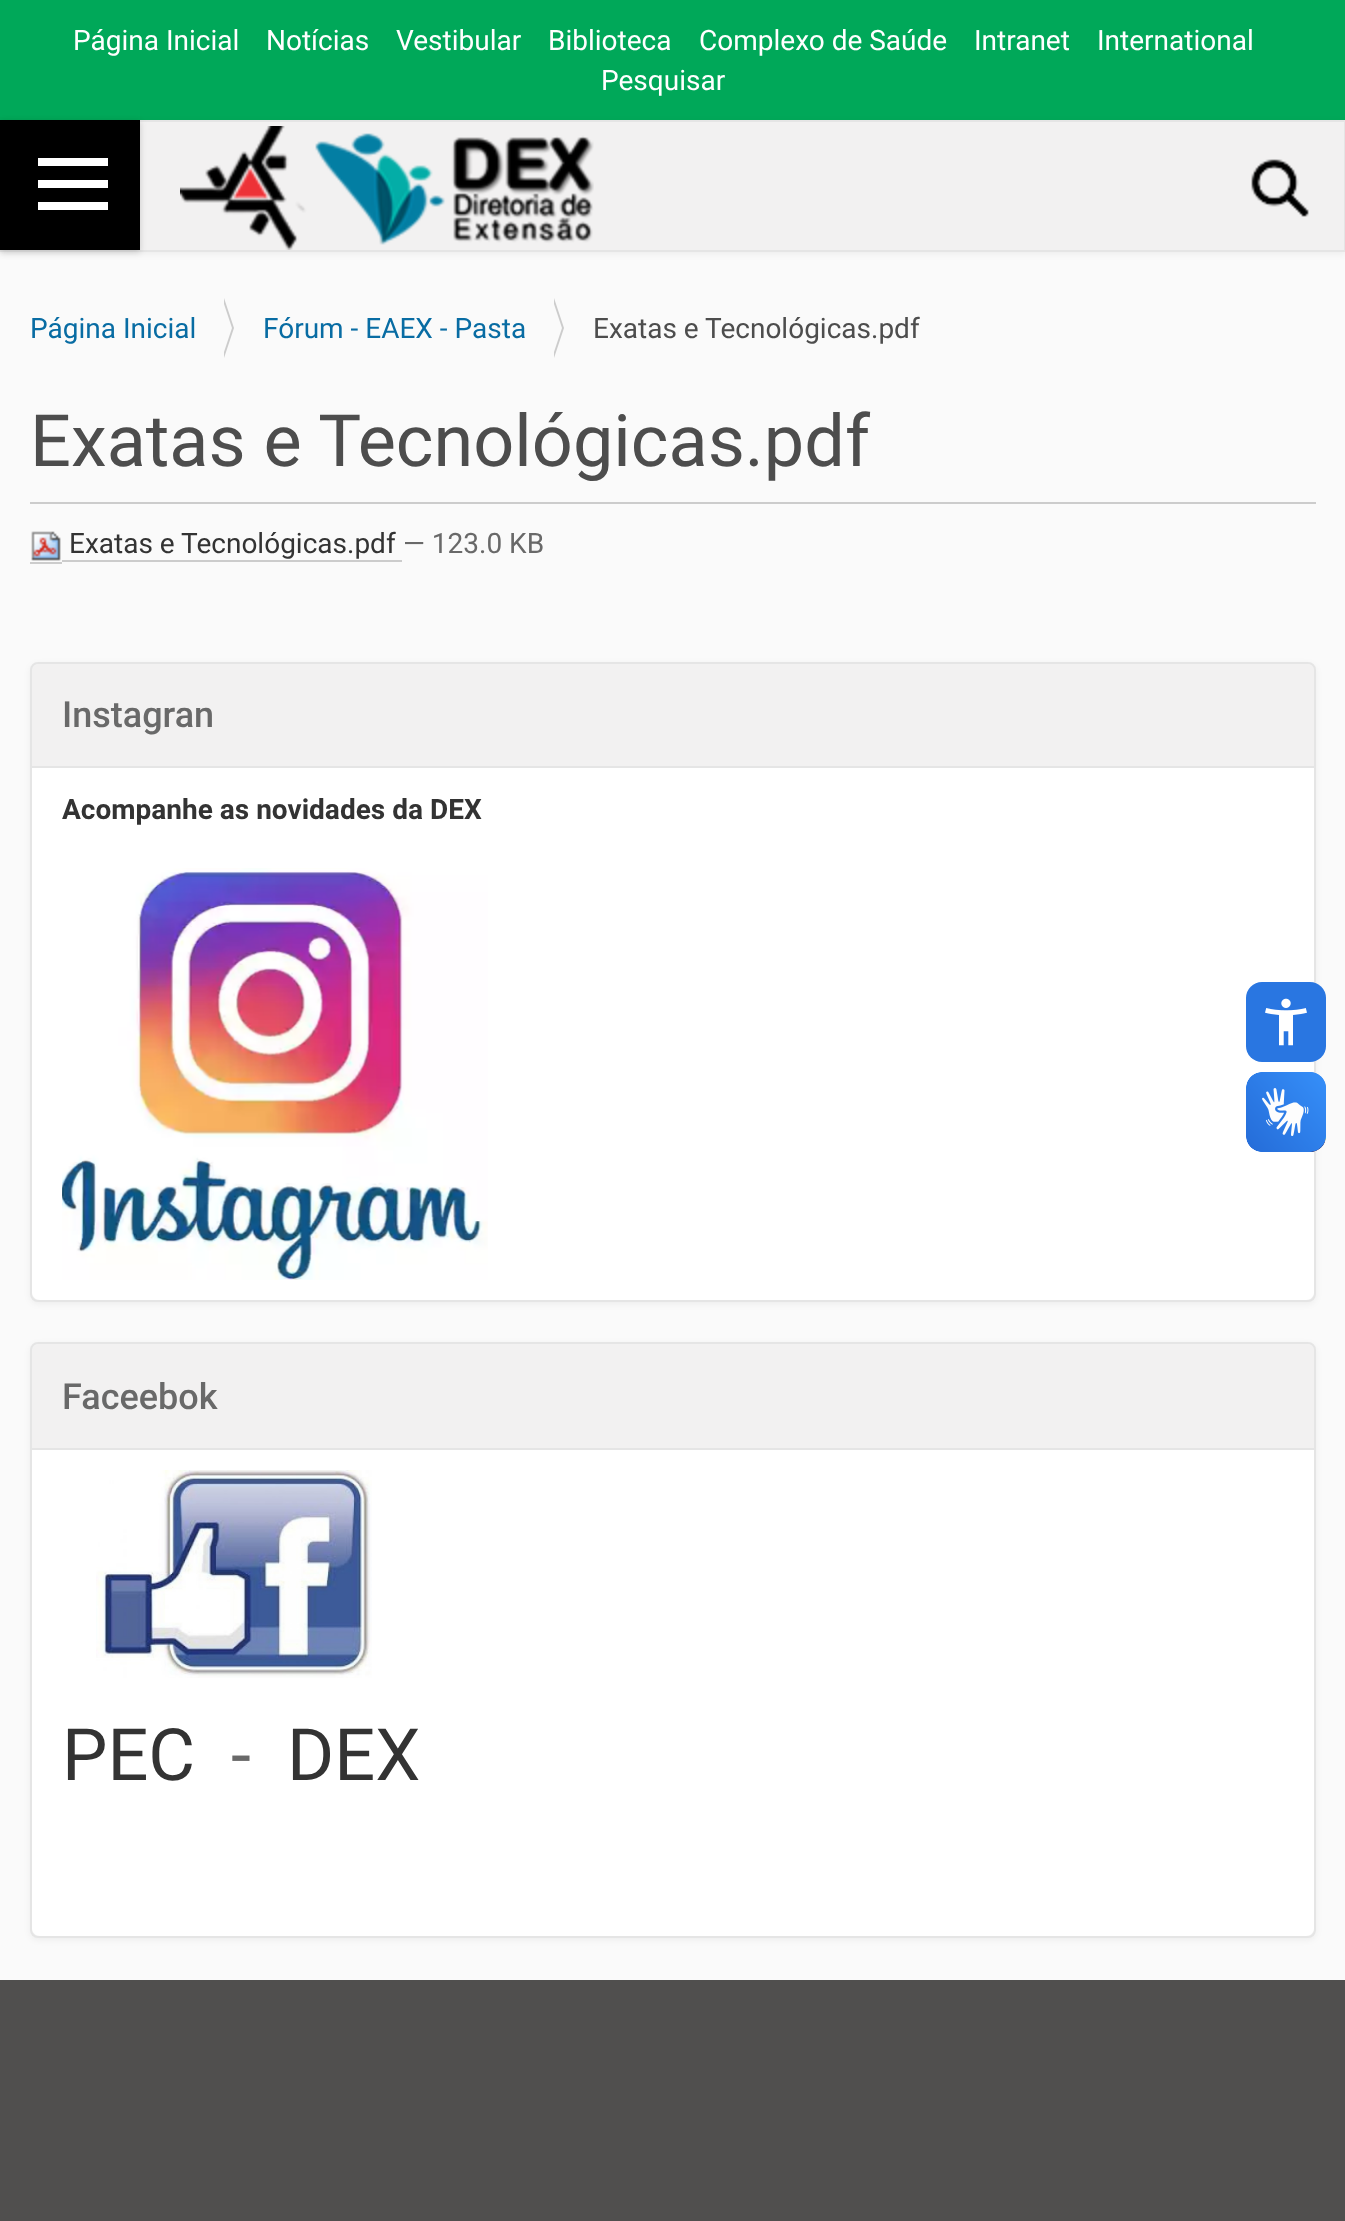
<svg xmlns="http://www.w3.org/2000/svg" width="1345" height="2221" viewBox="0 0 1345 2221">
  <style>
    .t1 { font: 28px Roboto; fill: #fff; }
    .t2 { font: 28px Roboto; fill: #086ca3; }
    .t3 { font: 28px Roboto; fill: #4d4d4d; }
    .t4 { font: 72px Roboto; fill: #4d4d4d; }
    .t5 { font: 28px Roboto; fill: #333; }
    .t6 { font: 28px Roboto; fill: #696969; }
    .t7 { font: 500 36px Roboto; fill: #696969; }
    .t8 { font: bold 28px Roboto; fill: #333; }
    .t9 { font: 72px Roboto; fill: #333; }
    .t10 { font: 72px Roboto; fill: #696969; }
  </style>
  <rect width="100%" height="100%" fill="#fafafa"/>
  <rect x="0" y="0" width="1345" height="120" fill="#00a859"/>
  <text x="73" y="50" class="t1">Página Inicial</text>
  <text x="266" y="50" class="t1">Notícias</text>
  <text x="396" y="50" class="t1">Vestibular</text>
  <text x="548" y="50" class="t1">Biblioteca</text>
  <text x="699" y="50" class="t1">Complexo de Saúde</text>
  <text x="974" y="50" class="t1">Intranet</text>
  <text x="1097" y="50" class="t1">International</text>
  <text x="601" y="90" class="t1">Pesquisar</text>
  <rect x="0" y="122" width="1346" height="132" fill="#0000000d" filter="blur(3px)"/>
  <rect x="140" y="122" width="1204" height="128" fill="#f2f1f1"/>
  <rect x="1" y="121" width="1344" height="130" fill="none" stroke="#e5e5e5" stroke-width="2"/>
  <image x="180" y="126" width="414" height="124" href="images/1.png"/>
  <image x="1251" y="159" width="58" height="58" href="images/2.png"/>
  <rect x="0" y="122" width="140" height="130" fill="#0000002b" filter="blur(3px)"/>
  <rect x="0" y="120" width="140" height="130" fill="#000"/>
  <rect x="38" y="158" width="70" height="8" fill="#fff"/>
  <rect x="38" y="180" width="70" height="8" fill="#fff"/>
  <rect x="38" y="202" width="70" height="8" fill="#fff"/>
  <text x="30" y="338" class="t2">Página Inicial</text>
  <path d="M224 358V298L234 328Z" fill="#ccc"/>
  <path d="M222 358V298L232 328Z" fill="#fafafa"/>
  <text x="263" y="338" class="t2">Fórum - EAEX - Pasta</text>
  <path d="M554 358V298L564 328Z" fill="#ccc"/>
  <path d="M552 358V298L562 328Z" fill="#fafafa"/>
  <text x="593" y="338" class="t3">Exatas e Tecnológicas.pdf</text>
  <rect x="30" y="502" width="1286" height="2" fill="#ccc"/>
  <text x="30" y="466" class="t4">Exatas e Tecnológicas.pdf</text>
  <image x="31" y="531" width="30" height="30" href="images/3.png"/>
  <text x="69" y="553" class="t5">Exatas e Tecnológicas.pdf</text>
  <rect x="30" y="562" width="32" height="2" fill="#ccc"/>
  <rect x="62" y="560" width="340" height="2" fill="#ccc"/>
  <text x="403" y="553" class="t6">— 123.0 KB</text>
  <rect x="30" y="664" width="1286" height="640" rx="8" fill="#0000000d" filter="blur(3px)"/>
  <rect x="31" y="663" width="1284" height="638" rx="7" fill="none" stroke="#e5e5e5" stroke-width="2"/>
  <path d="M40 664H1306C1310.5 664 1314 667.5 1314 672V766H32V672C32 667.5 35.5 664 40 664Z" fill="#f2f1f1"/>
  <text x="62" y="727" class="t7">Instagran</text>
  <path d="M32 766H1314V1292C1314 1296.5 1310.5 1300 1306 1300H40C35.5 1300 32 1296.5 32 1292Z" fill="#fff"/>
  <rect x="32" y="766" width="1282" height="2" fill="#e5e5e5"/>
  <text x="62" y="819" class="t8">Acompanhe as novidades da DEX</text>
  <image x="62" y="868" width="426" height="412" href="images/4.png"/>
  <rect x="30" y="1344" width="1286" height="596" rx="8" fill="#0000000d" filter="blur(3px)"/>
  <rect x="31" y="1343" width="1284" height="594" rx="7" fill="none" stroke="#e5e5e5" stroke-width="2"/>
  <path d="M40 1344H1306C1310.5 1344 1314 1347.5 1314 1352V1448H32V1352C32 1347.5 35.5 1344 40 1344Z" fill="#f2f1f1"/>
  <text x="62" y="1409" class="t7">Faceebok</text>
  <path d="M32 1448H1314V1928C1314 1932.5 1310.5 1936 1306 1936H40C35.5 1936 32 1932.5 32 1928Z" fill="#fff"/>
  <rect x="32" y="1448" width="1282" height="2" fill="#e5e5e5"/>
  <image x="96" y="1470" width="276" height="208" href="images/5.png"/>
  <text x="62" y="1780" class="t9">PEC</text>
  <text x="231" y="1780" class="t10">-</text>
  <text x="287" y="1780" class="t9">DEX</text>
  <rect x="1246" y="982" width="80" height="80" rx="16" fill="#2976e1"/>
  <image x="1265" y="998" width="42" height="48" href="images/6.png"/>
  <image x="1246" y="1072" width="80" height="80" href="images/7.png"/>
  <image x="1246" y="1072" width="80" height="80" href="images/8.png"/>
  <rect x="0" y="1980" width="1345" height="241" fill="#504f4e"/>
</svg>
